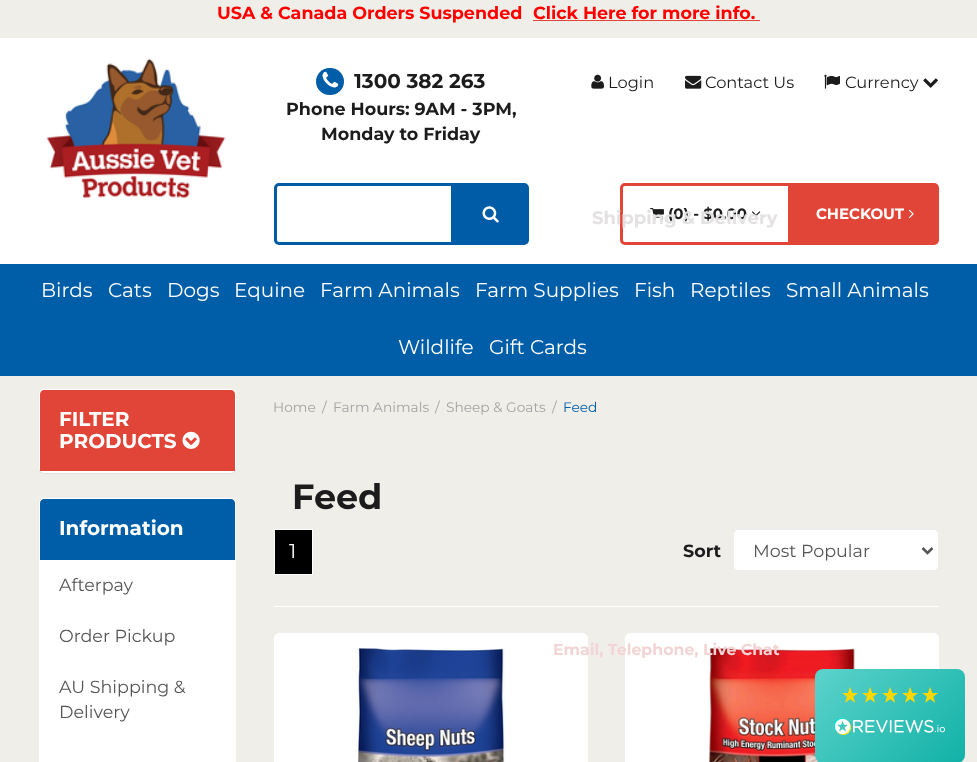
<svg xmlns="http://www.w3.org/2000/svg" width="977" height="762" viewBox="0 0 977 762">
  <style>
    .t1 { font: bold 17.5px Montserrat; fill: #f00; }
    .t2 { font: bold 20px Montserrat; fill: #1c1c1c; }
    .t3 { font: bold 17.5px Montserrat; fill: #1c1c1c; }
    .t4 { font: 16.25px Montserrat; fill: #1c1c1c; }
    .t5 { font: bold 15px Montserrat; fill: #1c1c1c; }
    .t6 { font: bold 15px Montserrat; fill: #fff; }
    .t7 { font: bold 18px Montserrat; fill: #e3e1e1; }
    .t8 { font: bold 15.75px Montserrat; fill: #f3d4d4; }
    .t9 { font: 20px Montserrat; fill: #fff; }
    .t10 { font: bold 20px Montserrat; fill: #fff; }
    .t11 { font: 17.5px Montserrat; fill: #555; }
    .t12 { font: 13.75px Montserrat; fill: #a4a4a4; }
    .t13 { font: 13.75px Montserrat; fill: #005da8; }
    .t14 { font: bold 35px Montserrat; fill: #1c1c1c; }
  </style>
  <defs>
    <linearGradient id="g1" gradientUnits="userSpaceOnUse" x1="829" y1="655" x2="951" y2="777"><stop offset="0" stop-color="#5cd3cb"/><stop offset="1" stop-color="#11b1a7"/></linearGradient>
  </defs>
  <rect width="100%" height="100%" fill="#f0eee9"/>
  <text x="217" y="19" class="t1">USA &amp; Canada Orders Suspended</text>
  <text x="533" y="19" class="t1">Click Here for more info.</text>
  <rect x="533" y="20" width="227" height="1" fill="#e14537"/>
  <rect x="0" y="38" width="977" height="226" fill="#fff"/>
  <image x="46" y="58" width="180" height="141" href="images/1.png"/>
  <rect x="316" y="68" width="28" height="27" rx="13.5" fill="#005da8"/>
  <image x="322" y="71" width="17" height="17" href="images/2.png"/>
  <text x="354" y="88" class="t2">1300 382 263</text>
  <text x="286" y="115" class="t3">Phone Hours: 9AM - 3PM,</text>
  <text x="321" y="140" class="t3">Monday to Friday</text>
  <image x="591" y="74" width="13" height="15" href="images/3.png"/>
  <text x="608" y="88" class="t4">Login</text>
  <image x="685" y="75" width="17" height="14" href="images/4.png"/>
  <text x="705" y="88" class="t4">Contact Us</text>
  <image x="824" y="74" width="16" height="15" href="images/5.png"/>
  <text x="845" y="88" class="t4">Currency</text>
  <image x="923" y="78" width="15" height="10" href="images/6.png"/>
  <path d="M454.5 184.5H524C526 184.5 527.5 186 527.5 188V240C527.5 242 526 243.5 524 243.5H454.5Z" fill="#005ca7" stroke="#005ca7" stroke-width="3"/>
  <path d="M279 184.5H452.5V243.5H279C277 243.5 275.5 242 275.5 240V188C275.5 186 277 184.5 279 184.5Z" fill="#fff" stroke="#005ca7" stroke-width="3"/>
  <image x="482" y="206" width="17" height="17" href="images/7.png"/>
  <path d="M625 184.5H789.5V243.5H625C623 243.5 621.5 242 621.5 240V188C621.5 186 623 184.5 625 184.5Z" fill="none" stroke="#e14537" stroke-width="3"/>
  <image x="650" y="208" width="14" height="12" href="images/8.png"/>
  <text x="668" y="219" class="t5">(0) - $0.00</text>
  <image x="752" y="211" width="9" height="6" href="images/9.png"/>
  <path d="M792.5 184.5H934C936 184.5 937.5 186 937.5 188V240C937.5 242 936 243.5 934 243.5H792.5Z" fill="#e14537" stroke="#e14537" stroke-width="3"/>
  <text x="816" y="219" class="t6">CHECKOUT</text>
  <image x="908" y="209" width="6" height="10" href="images/10.png"/>
  <text x="592" y="224" class="t7">Shipping &amp; Delivery</text>
  <rect x="274.5" y="633.5" width="313" height="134" rx="4.5" fill="#fff" stroke="#fff"/>
  <rect x="625.5" y="633.5" width="313" height="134" rx="4.5" fill="#fff" stroke="#fff"/>
  <image x="708" y="648" width="148" height="114" href="images/19.png"/>
  <text x="553" y="655" class="t8">Email, Telephone, Live Chat</text>
  <rect x="815" y="669" width="150" height="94" rx="8" fill="url(#g1)"/>
  <image x="842" y="687" width="16" height="16" href="images/11.png"/>
  <image x="862" y="687" width="16" height="16" href="images/12.png"/>
  <image x="882" y="687" width="16" height="16" href="images/13.png"/>
  <image x="902" y="687" width="16" height="16" href="images/14.png"/>
  <image x="922" y="687" width="16" height="16" href="images/15.png"/>
  <image x="834" y="718" width="111" height="17" href="images/16.png"/>
  <rect x="0" y="264" width="977" height="112" fill="#005da8"/>
  <text x="41" y="297" class="t9">Birds</text>
  <text x="108" y="297" class="t9">Cats</text>
  <text x="167" y="297" class="t9">Dogs</text>
  <text x="234" y="297" class="t9">Equine</text>
  <text x="320" y="297" class="t9">Farm Animals</text>
  <text x="475" y="297" class="t9">Farm Supplies</text>
  <text x="634" y="297" class="t9">Fish</text>
  <text x="690" y="297" class="t9">Reptiles</text>
  <text x="786" y="297" class="t9">Small Animals</text>
  <text x="398" y="354" class="t9">Wildlife</text>
  <text x="489" y="354" class="t9">Gift Cards</text>
  <rect x="39" y="390" width="197" height="84" rx="5" fill="#0000000d" filter="blur(0.5px)"/>
  <rect x="39.5" y="389.5" width="196" height="83" rx="4.5" fill="#fff" stroke="#fff"/>
  <path d="M44 390H231C233 390 235 392 235 394V471H40V394C40 392 42 390 44 390Z" fill="#e14537"/>
  <text x="59" y="426" class="t10">FILTER</text>
  <text x="59" y="448" class="t10">PRODUCTS</text>
  <image x="182" y="431" width="18" height="18" href="images/17.png"/>
  <rect x="39.5" y="498.5" width="196" height="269" rx="4.5" fill="#fff" stroke="#fff"/>
  <path d="M44 499H231C233 499 235 501 235 503V560H40V503C40 501 42 499 44 499Z" fill="#005da8"/>
  <text x="59" y="535" class="t10">Information</text>
  <text x="59" y="591" class="t11">Afterpay</text>
  <text x="59" y="642" class="t11">Order Pickup</text>
  <text x="59" y="693" class="t11">AU Shipping &amp;</text>
  <text x="59" y="718" class="t11">Delivery</text>
  <text x="273" y="412" class="t12">Home</text>
  <text x="322" y="412" class="t12">/</text>
  <text x="333" y="412" class="t12">Farm Animals</text>
  <text x="435" y="412" class="t12">/</text>
  <text x="446" y="412" class="t12">Sheep &amp; Goats</text>
  <text x="552" y="412" class="t12">/</text>
  <text x="563" y="412" class="t13">Feed</text>
  <text x="292" y="509" class="t14">Feed</text>
  <rect x="274.5" y="529.5" width="38" height="45" fill="#000" stroke="#fff"/>
  <text x="289" y="558" class="t9">1</text>
  <text x="683" y="557" class="t3">Sort</text>
  <rect x="733.5" y="529.5" width="205" height="41" rx="4.5" fill="#fff" stroke="#ededed"/>
  <path d="M922.5 548L927.5 553L932.5 548" fill="none" stroke="#555" stroke-width="2.5"/>
  <text x="753" y="557" class="t11">Most Popular</text>
  <rect x="274" y="606" width="665" height="1" fill="#fff"/>
  <image x="356" y="648" width="150" height="114" href="images/18.png"/>
</svg>
